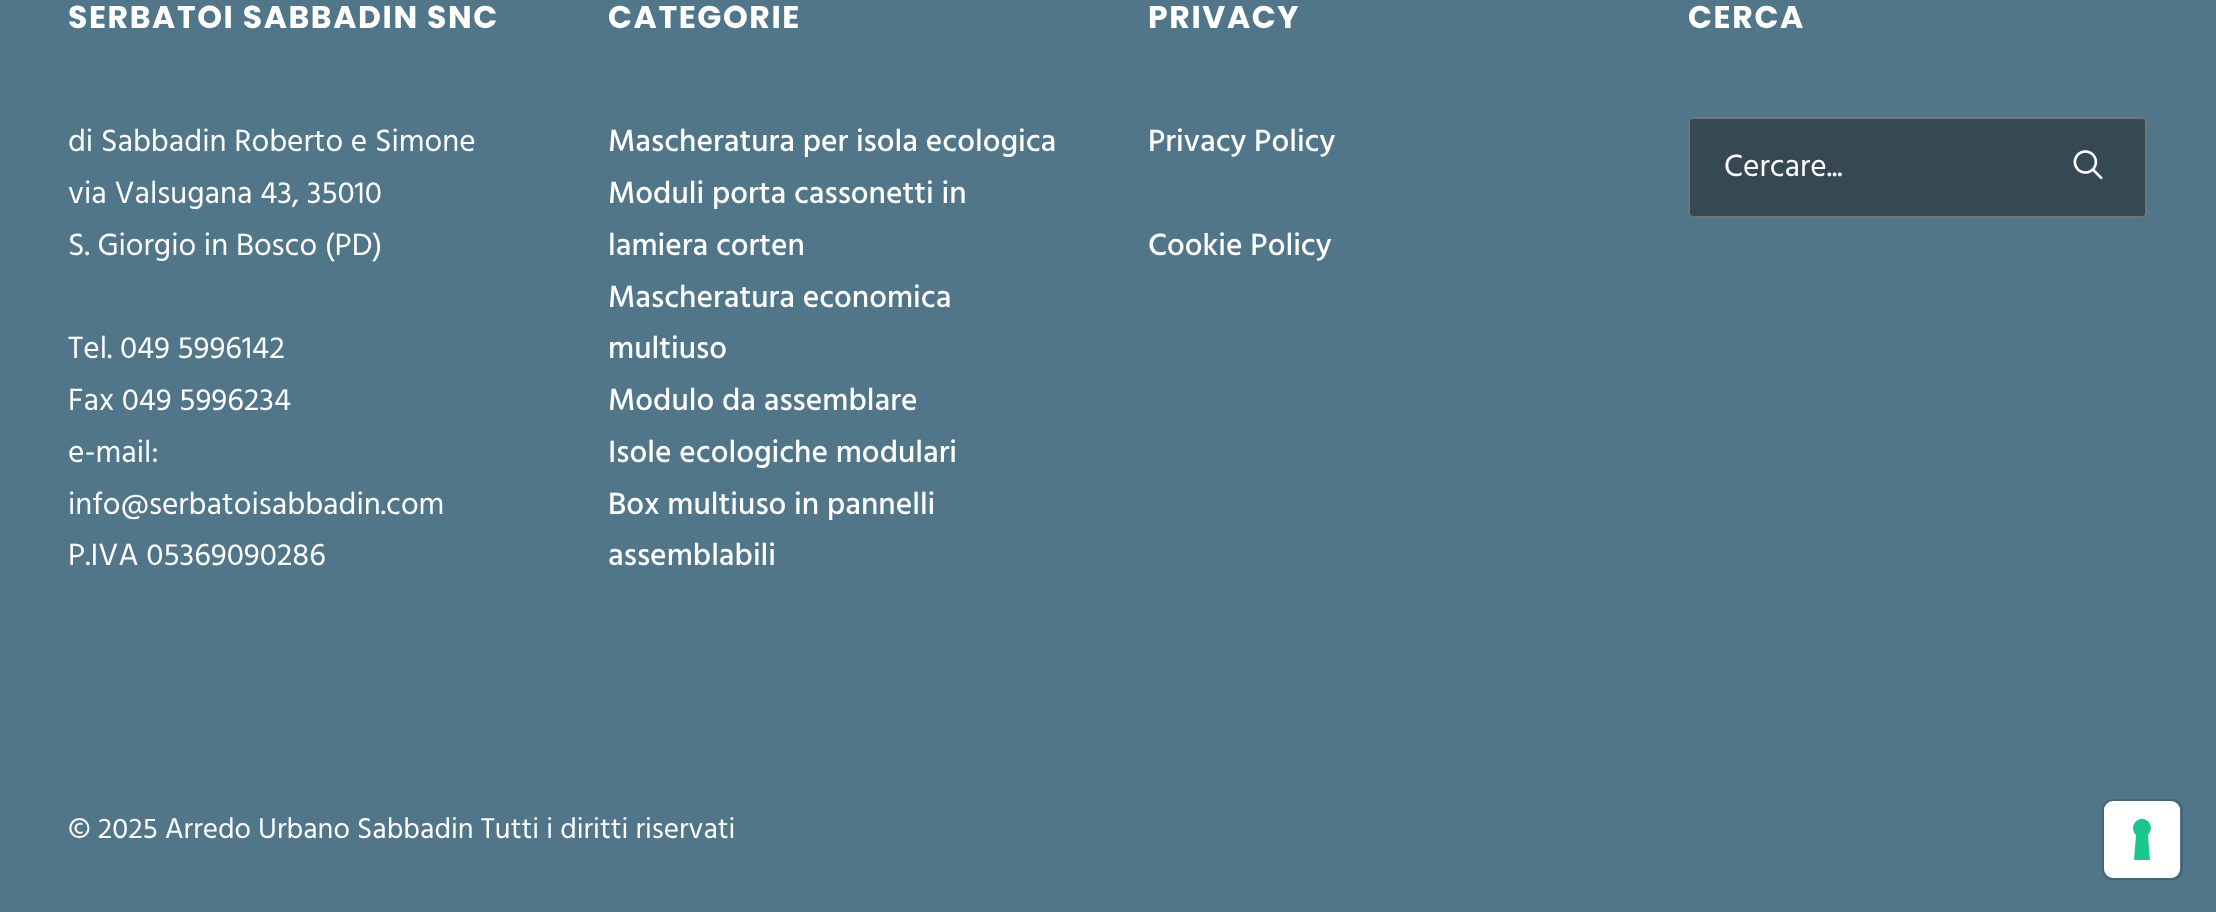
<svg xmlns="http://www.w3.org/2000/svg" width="2216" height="912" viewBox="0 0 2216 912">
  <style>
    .t1 { font: bold 31.5px Poppins; letter-spacing: 1.6px; fill: #fff; }
    .t2 { font: 31.5px Hind; fill: #fff; }
    .t3 { font: 500 31.5px Hind; fill: #fff; }
    .t4 { font: 29.25px Hind; fill: #fff; }
  </style>
  <rect width="100%" height="100%" fill="#51768a"/>
  <text x="68" y="28" class="t1">SERBATOI SABBADIN SNC</text>
  <text x="68" y="151" class="t2">di Sabbadin Roberto e Simone</text>
  <text x="68" y="203" class="t2">via Valsugana 43, 35010</text>
  <text x="68" y="255" class="t2">S. Giorgio in Bosco (PD)</text>
  <text x="68" y="358" class="t2">Tel. 049 5996142</text>
  <text x="68" y="410" class="t2">Fax 049 5996234</text>
  <text x="68" y="462" class="t2">e-mail:</text>
  <text x="68" y="514" class="t2">info@serbatoisabbadin.com</text>
  <text x="68" y="565" class="t2">P.IVA 05369090286</text>
  <text x="608" y="28" class="t1">CATEGORIE</text>
  <text x="608" y="151" class="t3">Mascheratura per isola ecologica</text>
  <text x="608" y="203" class="t3">Moduli porta cassonetti in</text>
  <text x="608" y="255" class="t3">lamiera corten</text>
  <text x="608" y="307" class="t3">Mascheratura economica</text>
  <text x="608" y="358" class="t3">multiuso</text>
  <text x="608" y="410" class="t3">Modulo da assemblare</text>
  <text x="608" y="462" class="t3">Isole ecologiche modulari</text>
  <text x="608" y="514" class="t3">Box multiuso in pannelli</text>
  <text x="608" y="565" class="t3">assemblabili</text>
  <text x="1148" y="28" class="t1">PRIVACY</text>
  <text x="1148" y="151" class="t3">Privacy Policy</text>
  <text x="1148" y="255" class="t3">Cookie Policy</text>
  <text x="1688" y="28" class="t1">CERCA</text>
  <rect x="1688" y="117" width="459" height="101" rx="5" fill="#364953"/>
  <rect x="1689" y="118" width="457" height="99" rx="4" fill="none" stroke="#ffffff40" stroke-width="2"/>
  <text x="1724" y="176" class="t2">Cercare...</text>
  <image x="2073" y="150" width="30" height="29" href="images/1.png"/>
  <text x="68" y="838" class="t4">© 2025 Arredo Urbano Sabbadin Tutti i diritti riservati</text>
  <rect x="2103" y="800" width="79" height="79" rx="10" fill="none" stroke="#456475" stroke-width="2"/>
  <rect x="2104" y="801" width="76" height="77" rx="9" fill="#fff"/>
  <path d="M2142 819C2150 819 2154 829 2148 835L2150 860H2134L2136 835C2130 829 2134 819 2142 819Z" fill="#1cc691" fill-rule="evenodd"/>
</svg>
